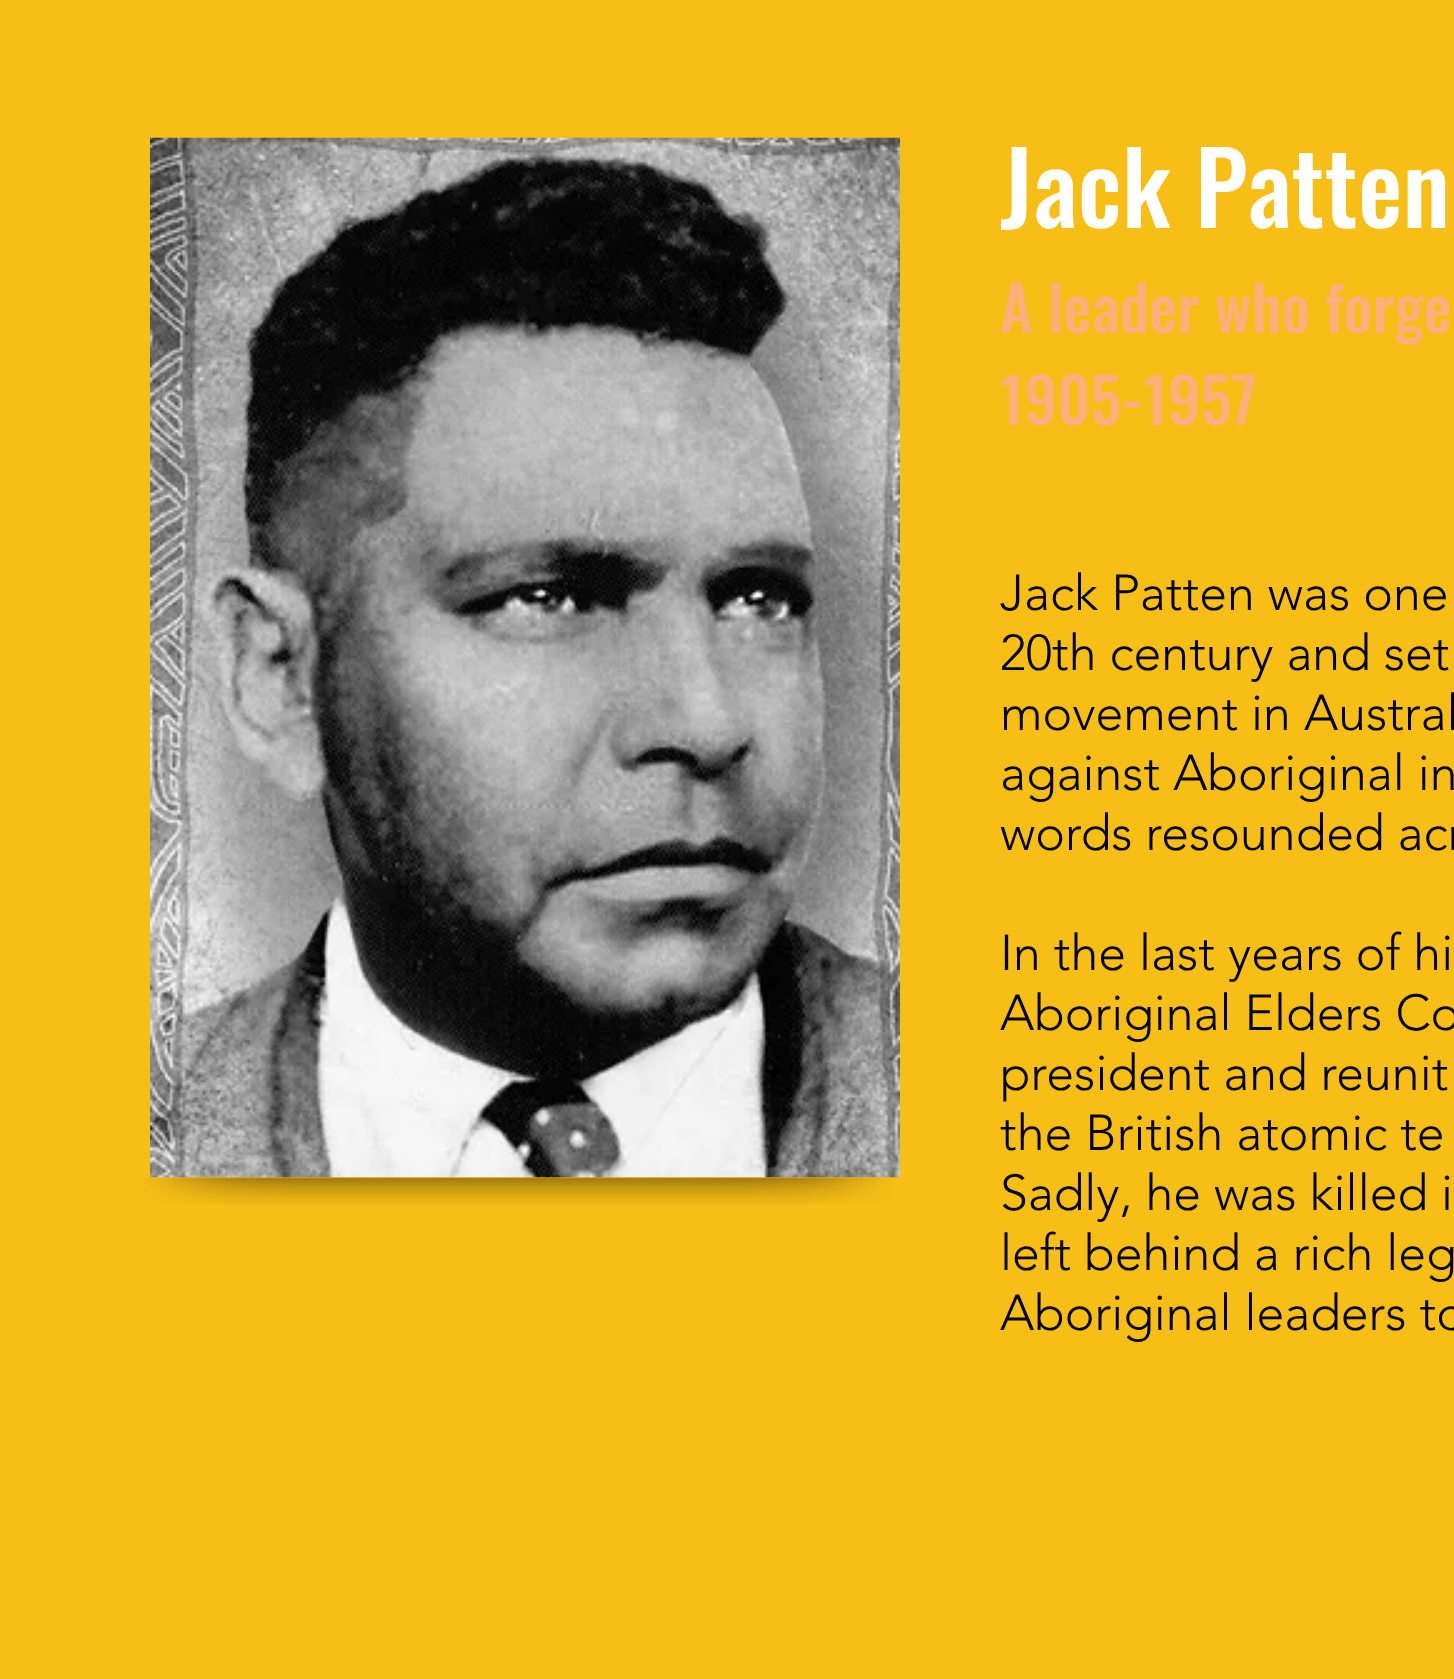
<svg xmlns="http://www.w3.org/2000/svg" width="1454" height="1679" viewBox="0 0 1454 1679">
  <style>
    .t1 { font: 500 100px Oswald; fill: #fff; }
    .t2 { font: 500 62.5px Oswald; fill: #fdaf7e; }
    .t3 { font: 300 50px 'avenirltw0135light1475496'; fill: #000; }
  </style>
  <rect width="100%" height="100%" fill="#f7be16"/>
  <image x="144" y="1166" width="241" height="39" href="images/2.png"/>
  <image x="385" y="1177" width="265" height="28" href="images/3.png"/>
  <image x="650" y="1177" width="241" height="28" href="images/4.png"/>
  <image x="150" y="137" width="750" height="1041" href="images/1.png"/>
  <text x="1000" y="228" class="t1">Jack Patten</text>
  <text x="1000" y="333" class="t2">A leader who forge</text>
  <text x="1000" y="425" class="t2">1905-1957</text>
  <text x="1000" y="610" class="t3">Jack Patten was one</text>
  <text x="1000" y="670" class="t3">20th century and set</text>
  <text x="1000" y="730" class="t3">movement in Austral</text>
  <text x="1000" y="790" class="t3">against Aboriginal in</text>
  <text x="1000" y="850" class="t3">words resounded acr</text>
  <text x="1000" y="970" class="t3">In the last years of hi</text>
  <text x="1000" y="1030" class="t3">Aboriginal Elders Co</text>
  <text x="1000" y="1090" class="t3">president and reunit</text>
  <text x="1000" y="1150" class="t3">the British atomic te</text>
  <text x="1000" y="1210" class="t3">Sadly, he was killed i</text>
  <text x="1000" y="1270" class="t3">left behind a rich leg</text>
  <text x="1000" y="1330" class="t3">Aboriginal leaders to</text>
</svg>
